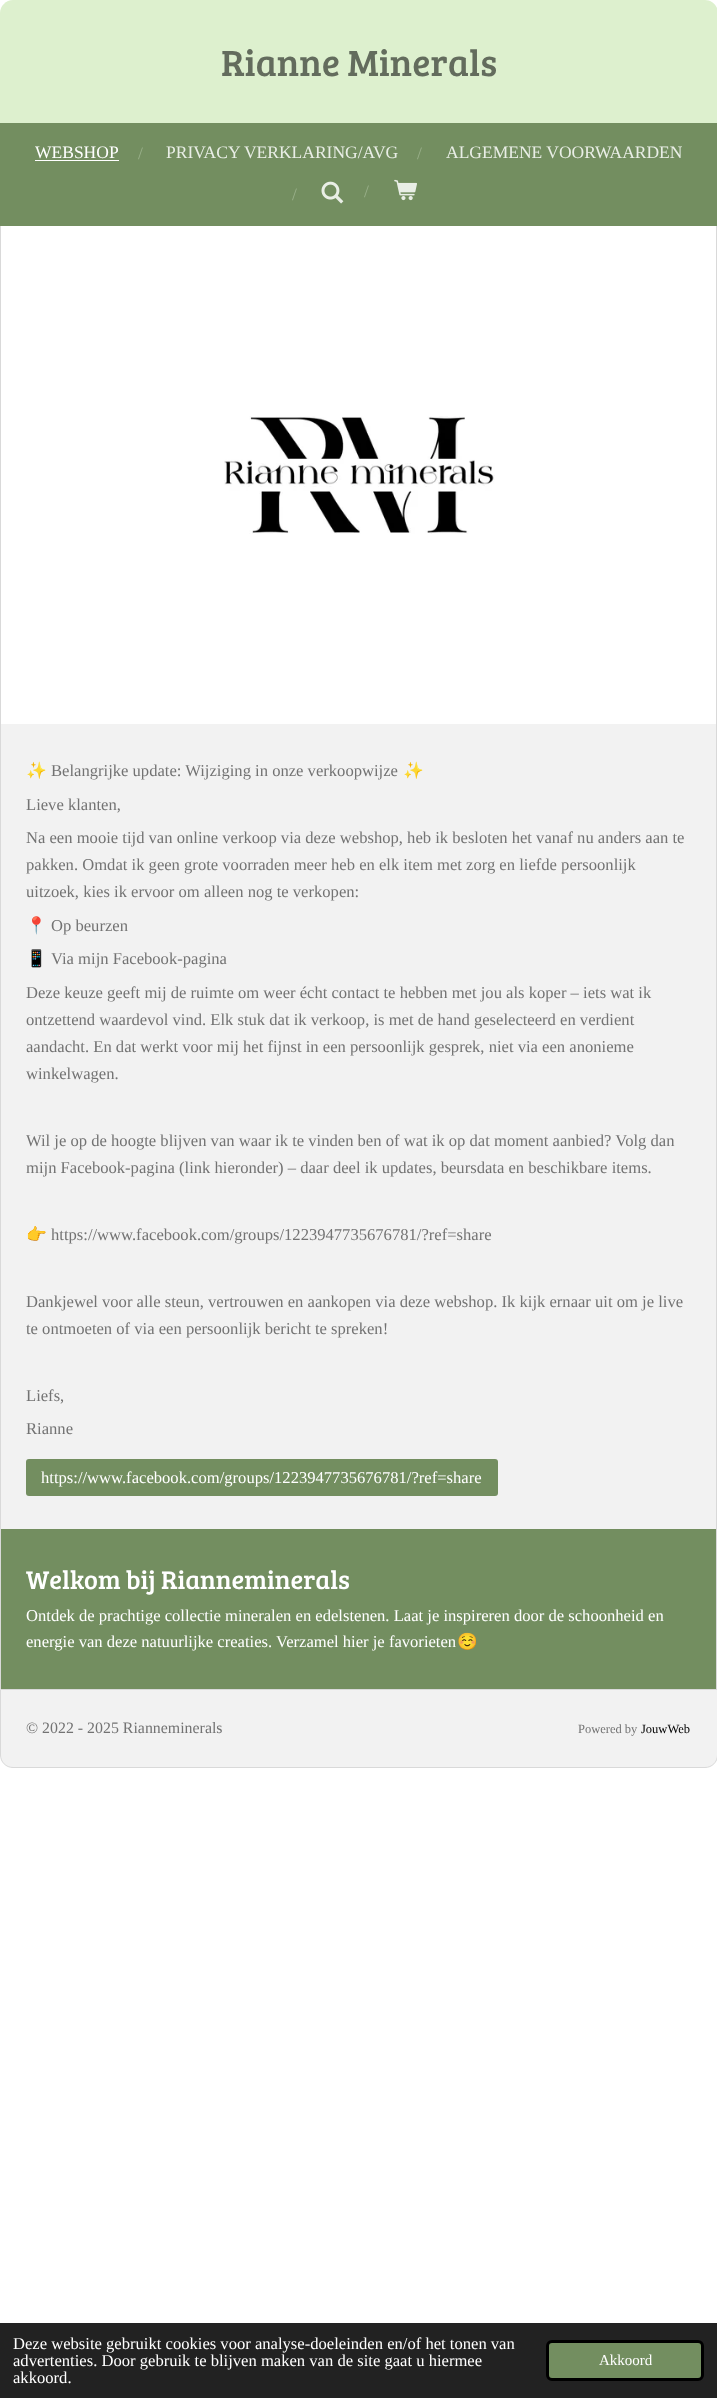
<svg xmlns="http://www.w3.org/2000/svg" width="717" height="2398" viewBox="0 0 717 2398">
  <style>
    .t1 { font: 37.5px Bree Serif; fill: #636c5d; }
    .t2 { font: 17.5px Liberation Serif; fill: #fff; }
    .t3 { font: 17.5px Liberation Serif; fill: #9ab08a; }
    .t4 { font: 17.5px Liberation Serif; fill: #e9eee6; }
    .t5 { font: 16.6px Noto Color Emoji; fill: #737373; }
    .t6 { font: 16.6px Liberation Serif; fill: #737373; }
    .t7 { font: 16.6px Liberation Serif; fill: #fff; }
    .t8 { font: 26.25px Bree Serif; fill: #fff; }
    .t9 { font: 16.6px Noto Color Emoji; fill: #fff; }
    .t10 { font: 15.9px Liberation Serif; fill: #737373; }
    .t11 { font: 12.5px Liberation Serif; fill: #737373; }
    .t12 { font: 12.5px Liberation Serif; fill: #000; }
    .t13 { font: 15px Liberation Serif; fill: #fff; }
  </style>
  <rect width="100%" height="100%" fill="#fff"/>
  <path d="M13 0H705C712 0 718 6 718 13V123H0V13C0 6 6 0 13 0Z" fill="#ddf0ce"/>
  <text x="221" y="76" class="t1">Rianne Minerals</text>
  <rect x="0" y="123" width="717" height="103" fill="#738e60"/>
  <text x="35" y="158" class="t2">WEBSHOP</text>
  <rect x="35" y="160" width="84" height="1" fill="#fff"/>
  <text x="138" y="159" class="t3">/</text>
  <text x="166" y="158" class="t4">PRIVACY VERKLARING/AVG</text>
  <text x="417" y="159" class="t3">/</text>
  <text x="446" y="158" class="t4">ALGEMENE VOORWAARDEN</text>
  <text x="292" y="200" class="t3">/</text>
  <image x="321" y="181" width="23" height="23" href="images/1.png"/>
  <text x="364" y="197" class="t3">/</text>
  <image x="394" y="179" width="23" height="22" href="images/2.png"/>
  <rect x="716" y="226" width="1" height="1463" fill="#d9d9d9"/>
  <rect x="0" y="226" width="1" height="1463" fill="#d9d9d9"/>
  <image x="224" y="416" width="271" height="118" href="images/3.png"/>
  <rect x="1" y="724" width="715" height="805" fill="#f2f2f2"/>
  <text x="26" y="776" class="t5">✨</text>
  <text x="51" y="776" class="t6">Belangrijke update: Wijziging in onze verkoopwijze</text>
  <text x="403" y="776" class="t5">✨</text>
  <text x="26" y="810" class="t6">Lieve klanten,</text>
  <text x="26" y="843" class="t6">Na een mooie tijd van online verkoop via deze webshop, heb ik besloten het vanaf nu anders aan te</text>
  <text x="26" y="870" class="t6">pakken. Omdat ik geen grote voorraden meer heb en elk item met zorg en liefde persoonlijk</text>
  <text x="26" y="897" class="t6">uitzoek, kies ik ervoor om alleen nog te verkopen:</text>
  <text x="26" y="931" class="t5">📍</text>
  <text x="51" y="931" class="t6">Op beurzen</text>
  <text x="26" y="964" class="t5">📱</text>
  <text x="51" y="964" class="t6">Via mijn Facebook-pagina</text>
  <text x="26" y="998" class="t6">Deze keuze geeft mij de ruimte om weer écht contact te hebben met jou als koper – iets wat ik</text>
  <text x="26" y="1025" class="t6">ontzettend waardevol vind. Elk stuk dat ik verkoop, is met de hand geselecteerd en verdient</text>
  <text x="26" y="1052" class="t6">aandacht. En dat werkt voor mij het fijnst in een persoonlijk gesprek, niet via een anonieme</text>
  <text x="26" y="1079" class="t6">winkelwagen.</text>
  <text x="26" y="1146" class="t6">Wil je op de hoogte blijven van waar ik te vinden ben of wat ik op dat moment aanbied? Volg dan</text>
  <text x="26" y="1173" class="t6">mijn Facebook-pagina (link hieronder) – daar deel ik updates, beursdata en beschikbare items.</text>
  <text x="26" y="1240" class="t5">👉</text>
  <text x="51" y="1240" class="t6">https://www.facebook.com/groups/1223947735676781/?ref=share</text>
  <text x="26" y="1307" class="t6">Dankjewel voor alle steun, vertrouwen en aankopen via deze webshop. Ik kijk ernaar uit om je live</text>
  <text x="26" y="1334" class="t6">te ontmoeten of via een persoonlijk bericht te spreken!</text>
  <text x="26" y="1401" class="t6">Liefs,</text>
  <text x="26" y="1434" class="t6">Rianne</text>
  <rect x="26" y="1459" width="472" height="37" rx="3" fill="#738e60"/>
  <text x="41" y="1483" class="t7">https://www.facebook.com/groups/1223947735676781/?ref=share</text>
  <rect x="1" y="1529" width="715" height="160" fill="#738e60"/>
  <text x="26" y="1589" class="t8">Welkom bij Rianneminerals</text>
  <text x="26" y="1621" class="t7">Ontdek de prachtige collectie mineralen en edelstenen. Laat je inspireren door de schoonheid en</text>
  <text x="26" y="1647" class="t7">energie van deze natuurlijke creaties. Verzamel hier je favorieten</text>
  <text x="457" y="1647" class="t9">☺️</text>
  <path d="M.5 1689.5H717.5V1755C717.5 1762 712 1767.5 705 1767.5H13C6 1767.5 .5 1762 .5 1755Z" fill="#f2f2f2" stroke="#d9d9d9"/>
  <text x="26" y="1733" class="t10">© 2022 - 2025 Rianneminerals</text>
  <text x="578" y="1733" class="t11">Powered by</text>
  <text x="641" y="1733" class="t12">JouwWeb</text>
  <rect x="0" y="2323" width="717" height="75" fill="#222"/>
  <text x="13" y="2349" class="t7">Deze website gebruikt cookies voor analyse-doeleinden en/of het tonen van</text>
  <text x="13" y="2366" class="t7">advertenties. Door gebruik te blijven maken van de site gaat u hiermee</text>
  <text x="13" y="2383" class="t7">akkoord.</text>
  <rect x="547.5" y="2341.5" width="155" height="38" rx="4.5" fill="#738e60" stroke="#000" stroke-width="3"/>
  <text x="599" y="2365" class="t13">Akkoord</text>
</svg>
